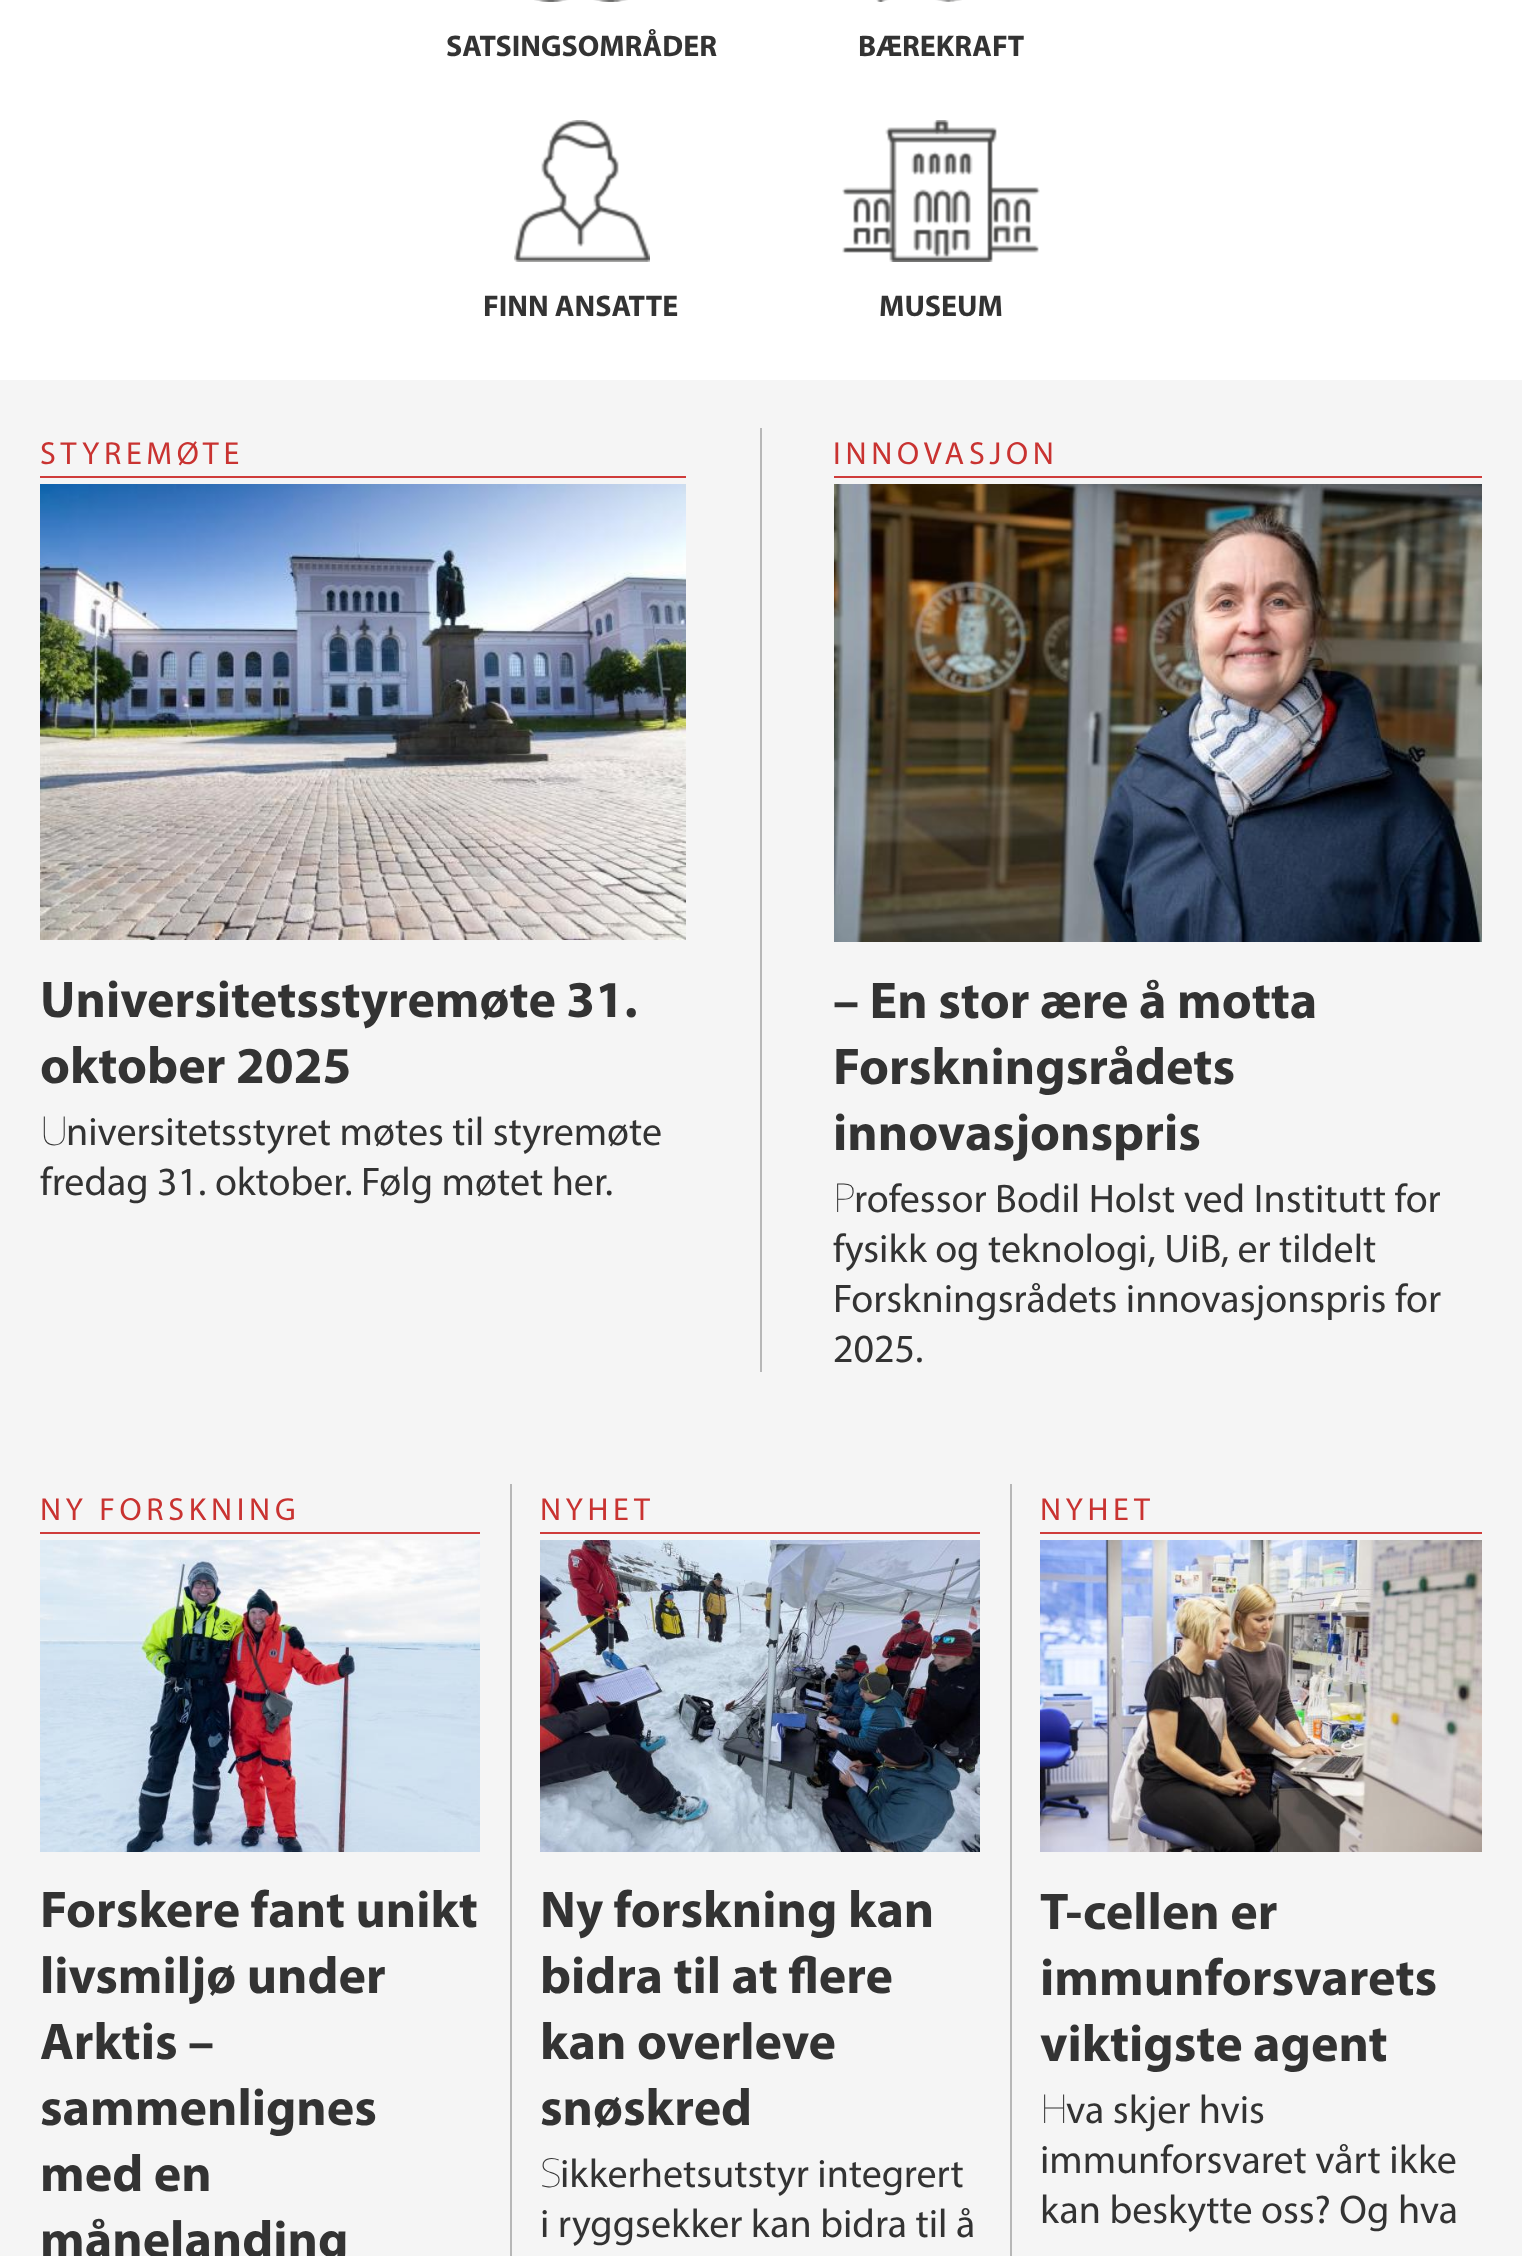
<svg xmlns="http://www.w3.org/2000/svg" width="1522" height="2256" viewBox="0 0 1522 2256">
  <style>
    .t1 { font: bold 30px Myriad; fill: #333; }
    .t2 { font: 32px Myriad; letter-spacing: 4.75px; fill: #c93331; }
    .t3 { font: bold 52px Myriad; fill: #333; }
    .t4 { font: 100 40px Noto Sans; fill: #333; }
    .t5 { font: 40px Myriad; fill: #333; }
  </style>
  <rect width="100%" height="100%" fill="#fff"/>
  <image x="534" y="0" width="94" height="2" href="images/1.png"/>
  <text x="446" y="56" class="t1">SATSINGSOMRÅDER</text>
  <image x="876" y="0" width="86" height="2" href="images/2.png"/>
  <text x="858" y="56" class="t1">BÆREKRAFT</text>
  <image x="514" y="120" width="136" height="142" href="images/3.png"/>
  <text x="483" y="316" class="t1">FINN ANSATTE</text>
  <image x="842" y="120" width="198" height="142" href="images/4.png"/>
  <text x="879" y="316" class="t1">MUSEUM</text>
  <rect x="0" y="380" width="1522" height="1876" fill="#f5f5f5"/>
  <rect x="760" y="428" width="2" height="944" fill="#b7b7b7"/>
  <rect x="40" y="476" width="646" height="2" fill="#cf3c3a"/>
  <text x="40" y="464" class="t2">STYREMØTE</text>
  <image x="40" y="484" width="646" height="456" href="images/5.png"/>
  <text x="40" y="1017" class="t3">Universitetsstyremøte 31.</text>
  <text x="40" y="1083" class="t3">oktober 2025</text>
  <text x="40" y="1145" class="t4">U</text>
  <text x="66" y="1145" class="t5">niversitetsstyret møtes til styremøte</text>
  <text x="40" y="1195" class="t5">fredag 31. oktober. Følg møtet her.</text>
  <rect x="834" y="476" width="648" height="2" fill="#cf3c3a"/>
  <text x="833" y="464" class="t2">INNOVASJON</text>
  <image x="834" y="484" width="648" height="458" href="images/6.png"/>
  <text x="833" y="1018" class="t3">– En stor ære å motta</text>
  <text x="833" y="1084" class="t3">Forskningsrådets</text>
  <text x="833" y="1150" class="t3">innovasjonspris</text>
  <text x="833" y="1212" class="t4">P</text>
  <text x="854" y="1212" class="t5">rofessor Bodil Holst ved Institutt for</text>
  <text x="833" y="1262" class="t5">fysikk og teknologi, UiB, er tildelt</text>
  <text x="833" y="1312" class="t5">Forskningsrådets innovasjonspris for</text>
  <text x="833" y="1362" class="t5">2025.</text>
  <rect x="510" y="1484" width="2" height="772" fill="#b7b7b7"/>
  <rect x="40" y="1532" width="440" height="2" fill="#cf3c3a"/>
  <text x="40" y="1520" class="t2">NY FORSKNING</text>
  <image x="40" y="1540" width="440" height="312" href="images/7.png"/>
  <text x="40" y="1927" class="t3">Forskere fant unikt</text>
  <text x="40" y="1993" class="t3">livsmiljø under</text>
  <text x="40" y="2059" class="t3">Arktis –</text>
  <text x="40" y="2125" class="t3">sammenlignes</text>
  <text x="40" y="2191" class="t3">med en</text>
  <text x="40" y="2257" class="t3">månelanding</text>
  <rect x="1010" y="1484" width="2" height="772" fill="#b7b7b7"/>
  <rect x="540" y="1532" width="440" height="2" fill="#cf3c3a"/>
  <text x="540" y="1520" class="t2">NYHET</text>
  <image x="540" y="1540" width="440" height="312" href="images/8.png"/>
  <text x="540" y="1927" class="t3">Ny forskning kan</text>
  <text x="540" y="1993" class="t3">bidra til at flere</text>
  <text x="540" y="2059" class="t3">kan overleve</text>
  <text x="540" y="2125" class="t3">snøskred</text>
  <text x="540" y="2187" class="t4">S</text>
  <text x="560" y="2187" class="t5">ikkerhetsutstyr integrert</text>
  <text x="540" y="2237" class="t5">i ryggsekker kan bidra til å</text>
  <rect x="1040" y="1532" width="442" height="2" fill="#cf3c3a"/>
  <text x="1040" y="1520" class="t2">NYHET</text>
  <image x="1040" y="1540" width="442" height="312" href="images/9.png"/>
  <text x="1040" y="1929" class="t3">T-cellen er</text>
  <text x="1040" y="1995" class="t3">immunforsvarets</text>
  <text x="1040" y="2061" class="t3">viktigste agent</text>
  <text x="1040" y="2123" class="t4">H</text>
  <text x="1066" y="2123" class="t5">va skjer hvis</text>
  <text x="1040" y="2173" class="t5">immunforsvaret vårt ikke</text>
  <text x="1040" y="2223" class="t5">kan beskytte oss? Og hva</text>
</svg>
